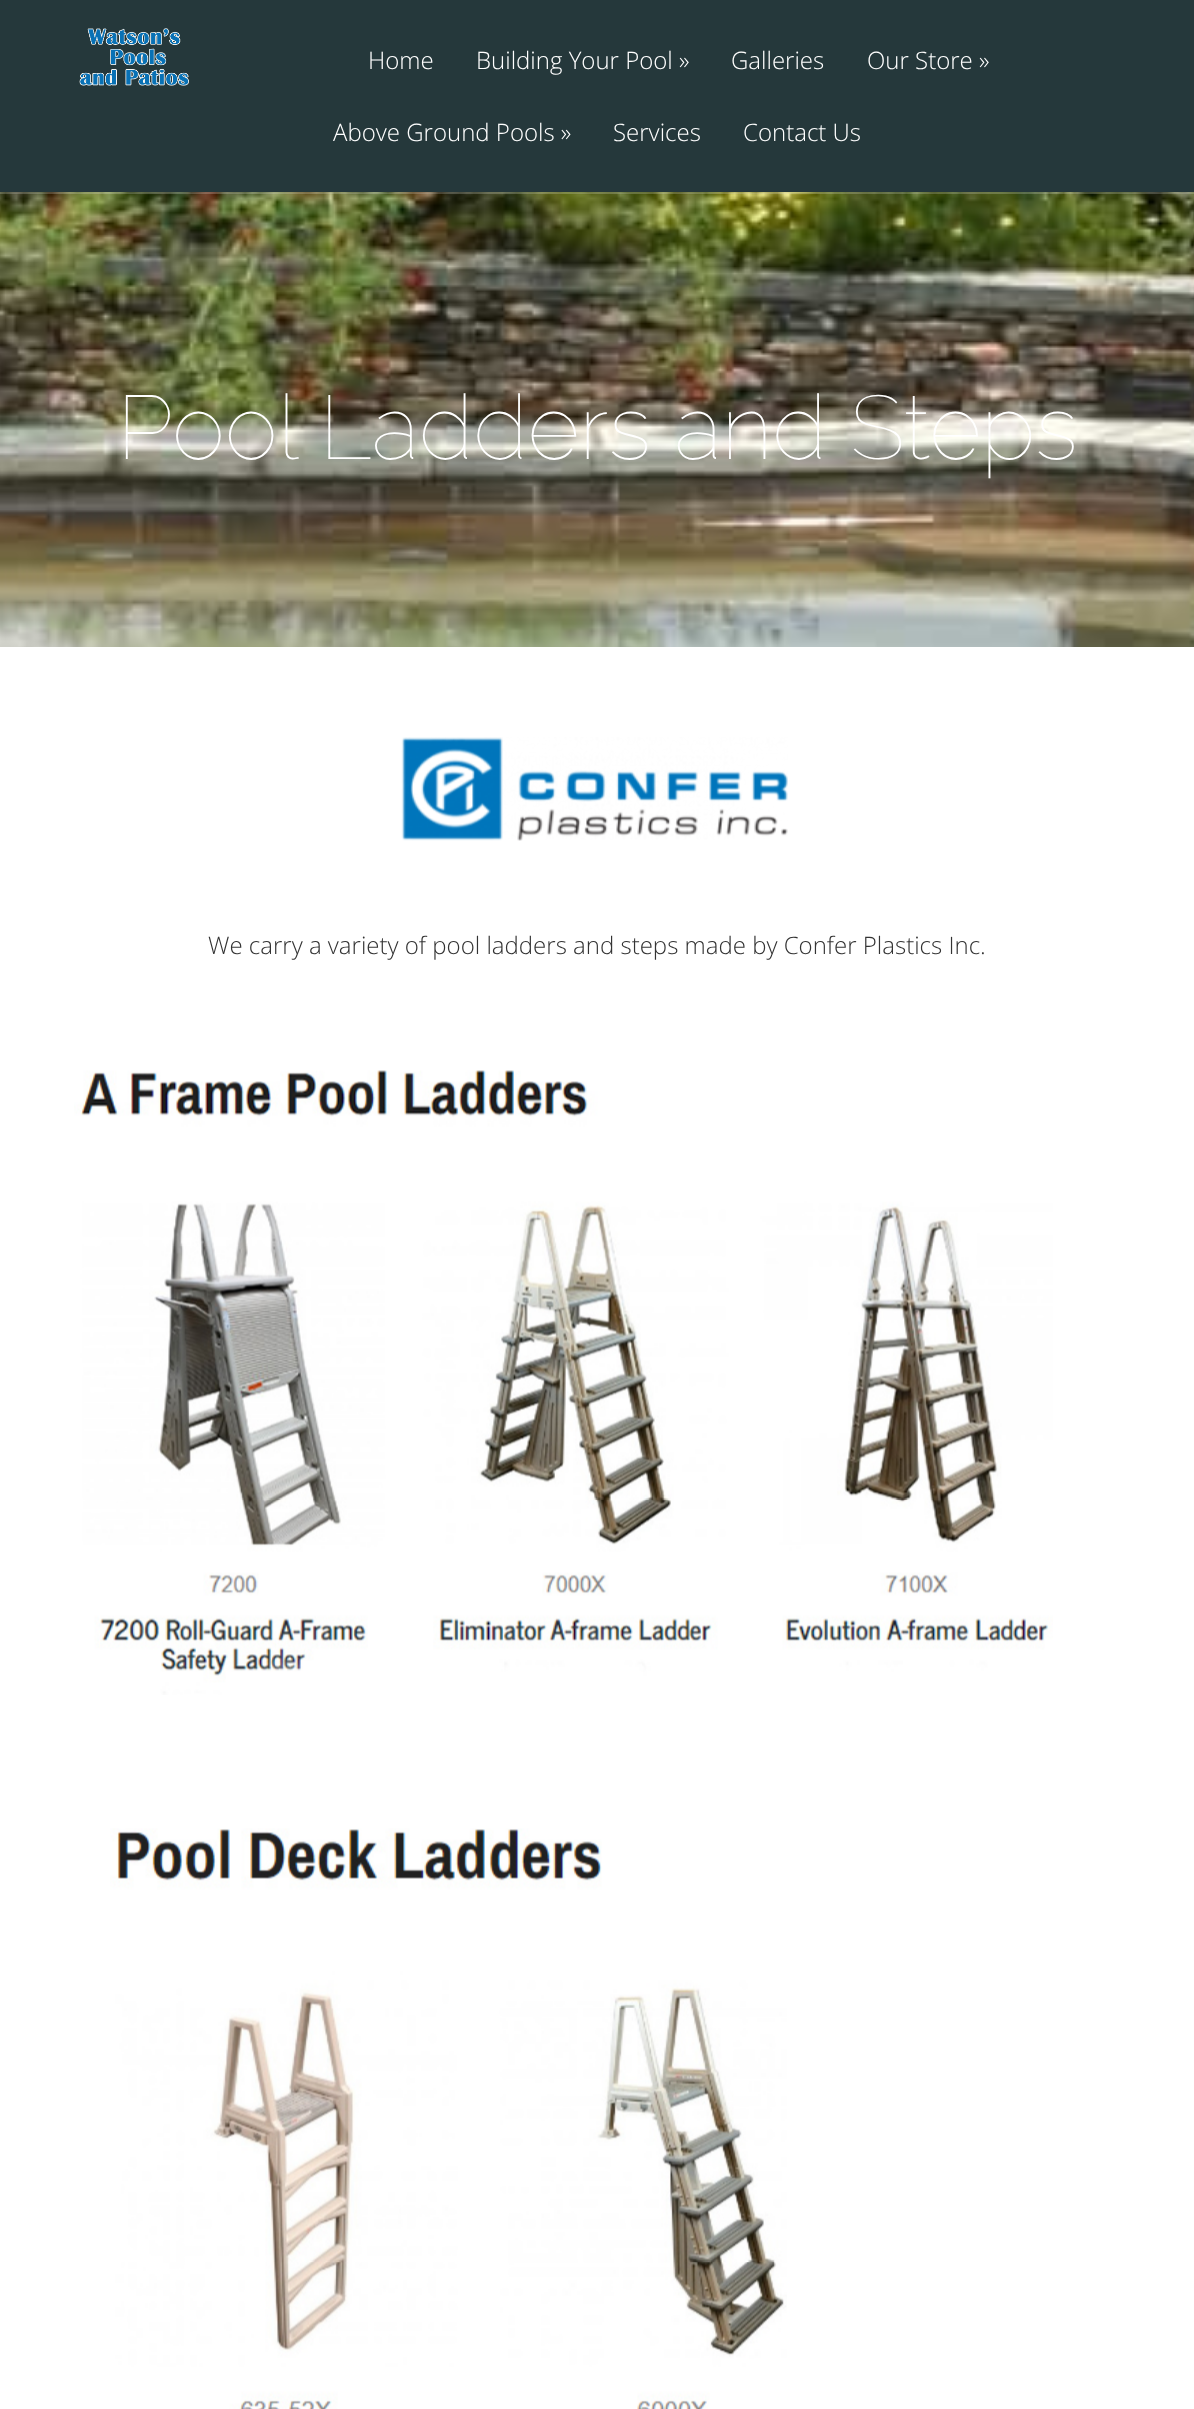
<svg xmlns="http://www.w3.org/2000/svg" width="1194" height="2409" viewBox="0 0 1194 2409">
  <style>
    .t1 { font: 300 24px Open Sans; fill: #fff; }
    .t2 { font: 100 90px Raleway; fill: #fff; }
    .t3 { font: 300 24px Open Sans; fill: #333; }
  </style>
  <rect width="100%" height="100%" fill="#25383b"/>
  <image x="0" y="192" width="1194" height="455" href="images/2.png"/>
  <rect x="0" y="192" width="1194" height="2" fill="#ffffff33"/>
  <image x="79" y="28" width="110" height="58" href="images/1.png"/>
  <text x="368" y="69" class="t1">Home</text>
  <text x="476" y="69" class="t1">Building Your Pool »</text>
  <text x="731" y="69" class="t1">Galleries</text>
  <text x="867" y="69" class="t1">Our Store »</text>
  <text x="333" y="141" class="t1">Above Ground Pools »</text>
  <text x="613" y="141" class="t1">Services</text>
  <text x="743" y="141" class="t1">Contact Us</text>
  <text x="117" y="459" class="t2">Pool Ladders and Steps</text>
  <rect x="0" y="647" width="1194" height="1762" fill="#fff"/>
  <image x="401" y="737" width="387" height="104" href="images/3.png"/>
  <text x="208" y="954" class="t3">We carry a variety of pool ladders and steps made by Confer Plastics Inc.</text>
  <image x="74" y="1070" width="979" height="625" href="images/4.png"/>
  <image x="110" y="1828" width="677" height="581" href="images/5.png"/>
</svg>
